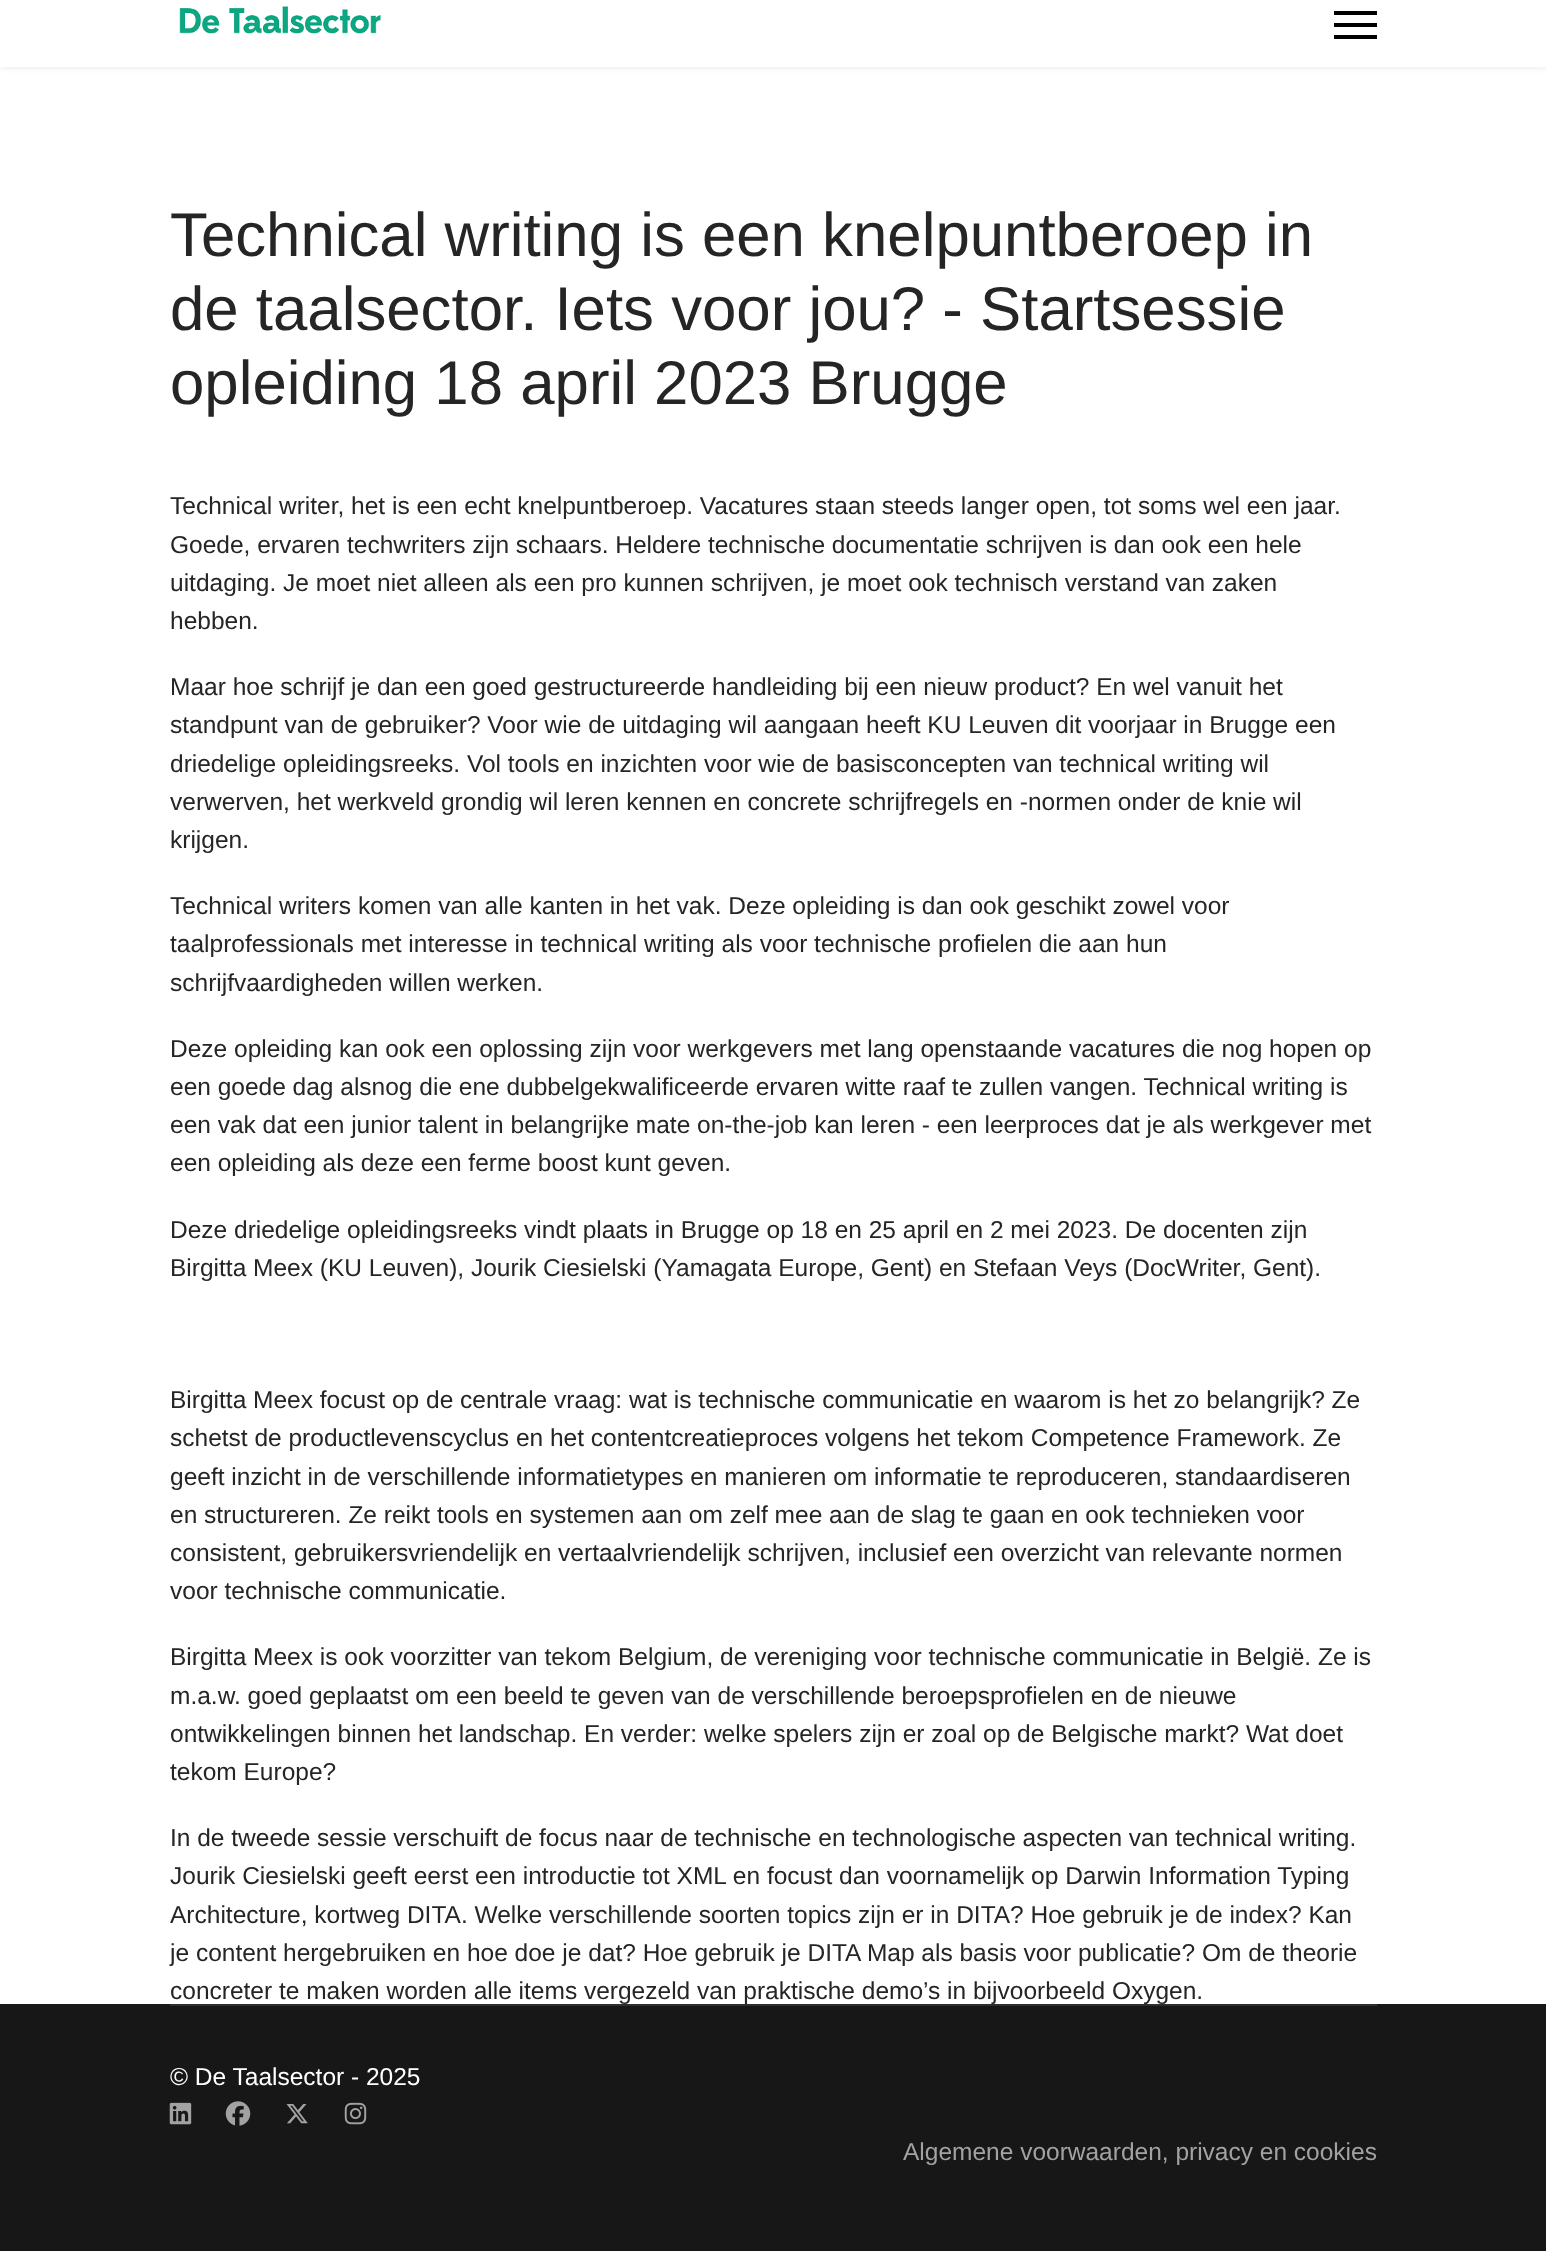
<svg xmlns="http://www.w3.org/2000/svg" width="1546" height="2251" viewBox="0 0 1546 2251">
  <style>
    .t1 { font: 61.75px Liberation Sans; fill: #252525; }
    .t2 { font: 24.5px Liberation Sans; fill: #252525; }
    .t3 { font: 24.5px Liberation Sans; fill: #fff; }
    .t4 { font: 24.5px Liberation Sans; fill: #a2a2a2; }
  </style>
  <rect width="100%" height="100%" fill="#fff"/>
  <rect x="0" y="-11" width="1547" height="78" fill="#0000001a" filter="blur(3.5px)"/>
  <rect x="0" y="0" width="1546" height="67" fill="#fff"/>
  <image x="179" y="6" width="202" height="28" href="images/1.png"/>
  <rect x="1334" y="11" width="43" height="4" fill="#000"/>
  <rect x="1334" y="23" width="43" height="4" fill="#000"/>
  <rect x="1334" y="35" width="43" height="4" fill="#000"/>
  <text x="170" y="256" class="t1">Technical writing is een knelpuntberoep in</text>
  <text x="170" y="330" class="t1">de taalsector. Iets voor jou? - Startsessie</text>
  <text x="170" y="404" class="t1">opleiding 18 april 2023 Brugge</text>
  <text x="170" y="514" class="t2">Technical writer, het is een echt knelpuntberoep. Vacatures staan steeds langer open, tot soms wel een jaar.</text>
  <text x="170" y="553" class="t2">Goede, ervaren techwriters zijn schaars. Heldere technische documentatie schrijven is dan ook een hele</text>
  <text x="170" y="591" class="t2">uitdaging. Je moet niet alleen als een pro kunnen schrijven, je moet ook technisch verstand van zaken</text>
  <text x="170" y="629" class="t2">hebben.</text>
  <text x="170" y="695" class="t2">Maar hoe schrijf je dan een goed gestructureerde handleiding bij een nieuw product? En wel vanuit het</text>
  <text x="170" y="733" class="t2">standpunt van de gebruiker? Voor wie de uitdaging wil aangaan heeft KU Leuven dit voorjaar in Brugge een</text>
  <text x="170" y="772" class="t2">driedelige opleidingsreeks. Vol tools en inzichten voor wie de basisconcepten van technical writing wil</text>
  <text x="170" y="810" class="t2">verwerven, het werkveld grondig wil leren kennen en concrete schrijfregels en -normen onder de knie wil</text>
  <text x="170" y="848" class="t2">krijgen.</text>
  <text x="170" y="914" class="t2">Technical writers komen van alle kanten in het vak. Deze opleiding is dan ook geschikt zowel voor</text>
  <text x="170" y="952" class="t2">taalprofessionals met interesse in technical writing als voor technische profielen die aan hun</text>
  <text x="170" y="991" class="t2">schrijfvaardigheden willen werken.</text>
  <text x="170" y="1057" class="t2">Deze opleiding kan ook een oplossing zijn voor werkgevers met lang openstaande vacatures die nog hopen op</text>
  <text x="170" y="1095" class="t2">een goede dag alsnog die ene dubbelgekwalificeerde ervaren witte raaf te zullen vangen. Technical writing is</text>
  <text x="170" y="1133" class="t2">een vak dat een junior talent in belangrijke mate on-the-job kan leren - een leerproces dat je als werkgever met</text>
  <text x="170" y="1171" class="t2">een opleiding als deze een ferme boost kunt geven.</text>
  <text x="170" y="1238" class="t2">Deze driedelige opleidingsreeks vindt plaats in Brugge op 18 en 25 april en 2 mei 2023. De docenten zijn</text>
  <text x="170" y="1276" class="t2">Birgitta Meex (KU Leuven), Jourik Ciesielski (Yamagata Europe, Gent) en Stefaan Veys (DocWriter, Gent).</text>
  <text x="170" y="1408" class="t2">Birgitta Meex focust op de centrale vraag: wat is technische communicatie en waarom is het zo belangrijk? Ze</text>
  <text x="170" y="1446" class="t2">schetst de productlevenscyclus en het contentcreatieproces volgens het tekom Competence Framework. Ze</text>
  <text x="170" y="1485" class="t2">geeft inzicht in de verschillende informatietypes en manieren om informatie te reproduceren, standaardiseren</text>
  <text x="170" y="1523" class="t2">en structureren. Ze reikt tools en systemen aan om zelf mee aan de slag te gaan en ook technieken voor</text>
  <text x="170" y="1561" class="t2">consistent, gebruikersvriendelijk en vertaalvriendelijk schrijven, inclusief een overzicht van relevante normen</text>
  <text x="170" y="1599" class="t2">voor technische communicatie.</text>
  <text x="170" y="1665" class="t2">Birgitta Meex is ook voorzitter van tekom Belgium, de vereniging voor technische communicatie in België. Ze is</text>
  <text x="170" y="1704" class="t2">m.a.w. goed geplaatst om een beeld te geven van de verschillende beroepsprofielen en de nieuwe</text>
  <text x="170" y="1742" class="t2">ontwikkelingen binnen het landschap. En verder: welke spelers zijn er zoal op de Belgische markt? Wat doet</text>
  <text x="170" y="1780" class="t2">tekom Europe?</text>
  <text x="170" y="1846" class="t2">In de tweede sessie verschuift de focus naar de technische en technologische aspecten van technical writing.</text>
  <text x="170" y="1884" class="t2">Jourik Ciesielski geeft eerst een introductie tot XML en focust dan voornamelijk op Darwin Information Typing</text>
  <text x="170" y="1923" class="t2">Architecture, kortweg DITA. Welke verschillende soorten topics zijn er in DITA? Hoe gebruik je de index? Kan</text>
  <text x="170" y="1961" class="t2">je content hergebruiken en hoe doe je dat? Hoe gebruik je DITA Map als basis voor publicatie? Om de theorie</text>
  <text x="170" y="1999" class="t2">concreter te maken worden alle items vergezeld van praktische demo’s in bijvoorbeeld Oxygen.</text>
  <rect x="0" y="2004" width="1546" height="247" fill="#171717"/>
  <rect x="170" y="2004" width="1207" height="2" fill="#2e2e2e"/>
  <text x="170" y="2085" class="t3">© De Taalsector - 2025</text>
  <image x="169" y="2102" width="23" height="23" href="images/2.png"/>
  <image x="225" y="2101" width="26" height="25" href="images/3.png"/>
  <image x="286" y="2104" width="22" height="20" href="images/4.png"/>
  <image x="344" y="2102" width="23" height="23" href="images/5.png"/>
  <text x="903" y="2160" class="t4">Algemene voorwaarden, privacy en cookies</text>
</svg>
